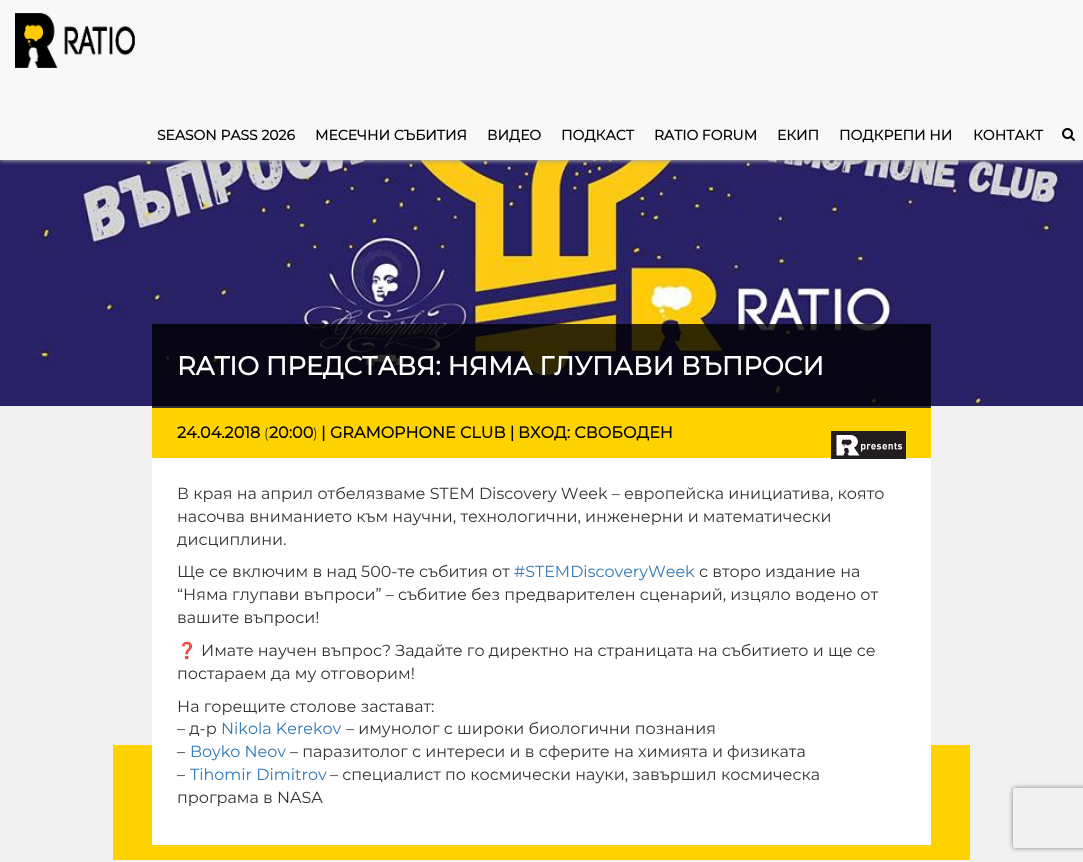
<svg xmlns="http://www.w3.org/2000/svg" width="1083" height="862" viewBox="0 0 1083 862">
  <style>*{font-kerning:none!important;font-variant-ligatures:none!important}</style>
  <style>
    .t1 { font: bold 14px Montserrat; fill: #000; }
    .t2 { font: bold 26px Montserrat; fill: #fff; }
    .t3 { font: bold 16px Montserrat; fill: #070501; }
    .t4 { font: 100 14px Montserrat; fill: #333; }
    .t5 { font: 100 16px Montserrat; fill: #333; }
    .t6 { font: 100 16px Montserrat; fill: #337ab7; }
    .t7 { font: 16px Noto Color Emoji; fill: #333; }
  </style>
  <defs>
    <clipPath id="clip1"><path d="M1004 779H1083V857H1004ZM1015 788H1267C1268 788 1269 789 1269 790V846C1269 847 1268 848 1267 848H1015C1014 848 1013 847 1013 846V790C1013 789 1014 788 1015 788Z" clip-rule="evenodd"/></clipPath>
  </defs>
  <rect width="100%" height="100%" fill="#f1f1f1"/>
  <image x="0" y="160" width="1083" height="246" href="images/3.png"/>
  <rect x="0" y="1" width="1083" height="160" fill="#a7a7a7" filter="blur(2px)"/>
  <rect x="0" y="0" width="1083" height="160" fill="#f8f8f8"/>
  <image x="15" y="13" width="120" height="55" href="images/1.png"/>
  <text x="157" y="140" class="t1">SEASON PASS 2026</text>
  <text x="315" y="140" class="t1">МЕСЕЧНИ СЪБИТИЯ</text>
  <text x="487" y="140" class="t1">ВИДЕО</text>
  <text x="561" y="140" class="t1">ПОДКАСТ</text>
  <text x="654" y="140" class="t1">RATIO FORUM</text>
  <text x="777" y="140" class="t1">ЕКИП</text>
  <text x="839" y="140" class="t1">ПОДКРЕПИ НИ</text>
  <text x="973" y="140" class="t1">КОНТАКТ</text>
  <image x="1062" y="128" width="13" height="13" href="images/2.png"/>
  <rect x="152" y="324" width="779" height="84" fill="#000000cc"/>
  <text x="177" y="375" class="t2">RATIO ПРЕДСТАВЯ: НЯМА ГЛУПАВИ</text>
  <text x="681" y="375" class="t2">ВЪПРОСИ</text>
  <rect x="152" y="408" width="779" height="50" fill="#ffd300"/>
  <text x="177" y="438" class="t3">24.04.2018</text>
  <text x="264" y="438" class="t4">(</text>
  <text x="269" y="438" class="t3">20:00</text>
  <text x="313" y="438" class="t4">)</text>
  <text x="321" y="438" class="t3">|</text>
  <text x="330" y="438" class="t3">GRAMOPHONE CLUB |</text>
  <text x="518" y="438" class="t3">ВХОД: СВОБОДЕН</text>
  <rect x="113" y="745" width="857" height="115" fill="#ffd300"/>
  <rect x="152" y="458" width="779" height="387" fill="#fff"/>
  <image x="831" y="431" width="75" height="28" href="images/4.png"/>
  <text x="177" y="499" class="t5">В края на април отбелязваме STEM Discovery Week – европейска инициатива, която</text>
  <text x="177" y="522" class="t5">насочва вниманието към научни, технологични, инженерни и математически</text>
  <text x="177" y="545" class="t5">дисциплини.</text>
  <text x="177" y="577" class="t5">Ще се включим в над 500-те събития от</text>
  <text x="514" y="577" class="t6">#STEMDiscoveryWeek</text>
  <text x="699" y="577" class="t5">с второ издание на</text>
  <text x="177" y="600" class="t5">“Няма глупави въпроси” – събитие без предварителен сценарий, изцяло водено от</text>
  <text x="177" y="623" class="t5">вашите въпроси!</text>
  <text x="177" y="656" class="t7">❓</text>
  <text x="201" y="656" class="t5">Имате научен въпрос? Задайте го директно на страницата на събитието и ще се</text>
  <text x="177" y="679" class="t5">постараем да му отговорим!</text>
  <text x="177" y="712" class="t5">На горещите столове застават:</text>
  <text x="177" y="734" class="t5">– д-р</text>
  <text x="221" y="734" class="t6">Nikola Kerekov</text>
  <text x="346" y="734" class="t5">– имунолог с широки биологични познания</text>
  <text x="177" y="757" class="t5">–</text>
  <text x="190" y="757" class="t6">Boyko Neov</text>
  <text x="290" y="757" class="t5">– паразитолог с интереси и в сферите на химията и физиката</text>
  <text x="177" y="780" class="t5">–</text>
  <text x="190" y="780" class="t6">Tihomir Dimitrov</text>
  <text x="330" y="780" class="t5">– специалист по космически науки, завършил космическа</text>
  <text x="177" y="803" class="t5">програма в NASA</text>
  <g clip-path="url(#clip1)">
    <rect x="1013" y="788" width="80" height="60" rx="2" fill="#808080" filter="blur(2.5px)"/>
  </g>
</svg>
